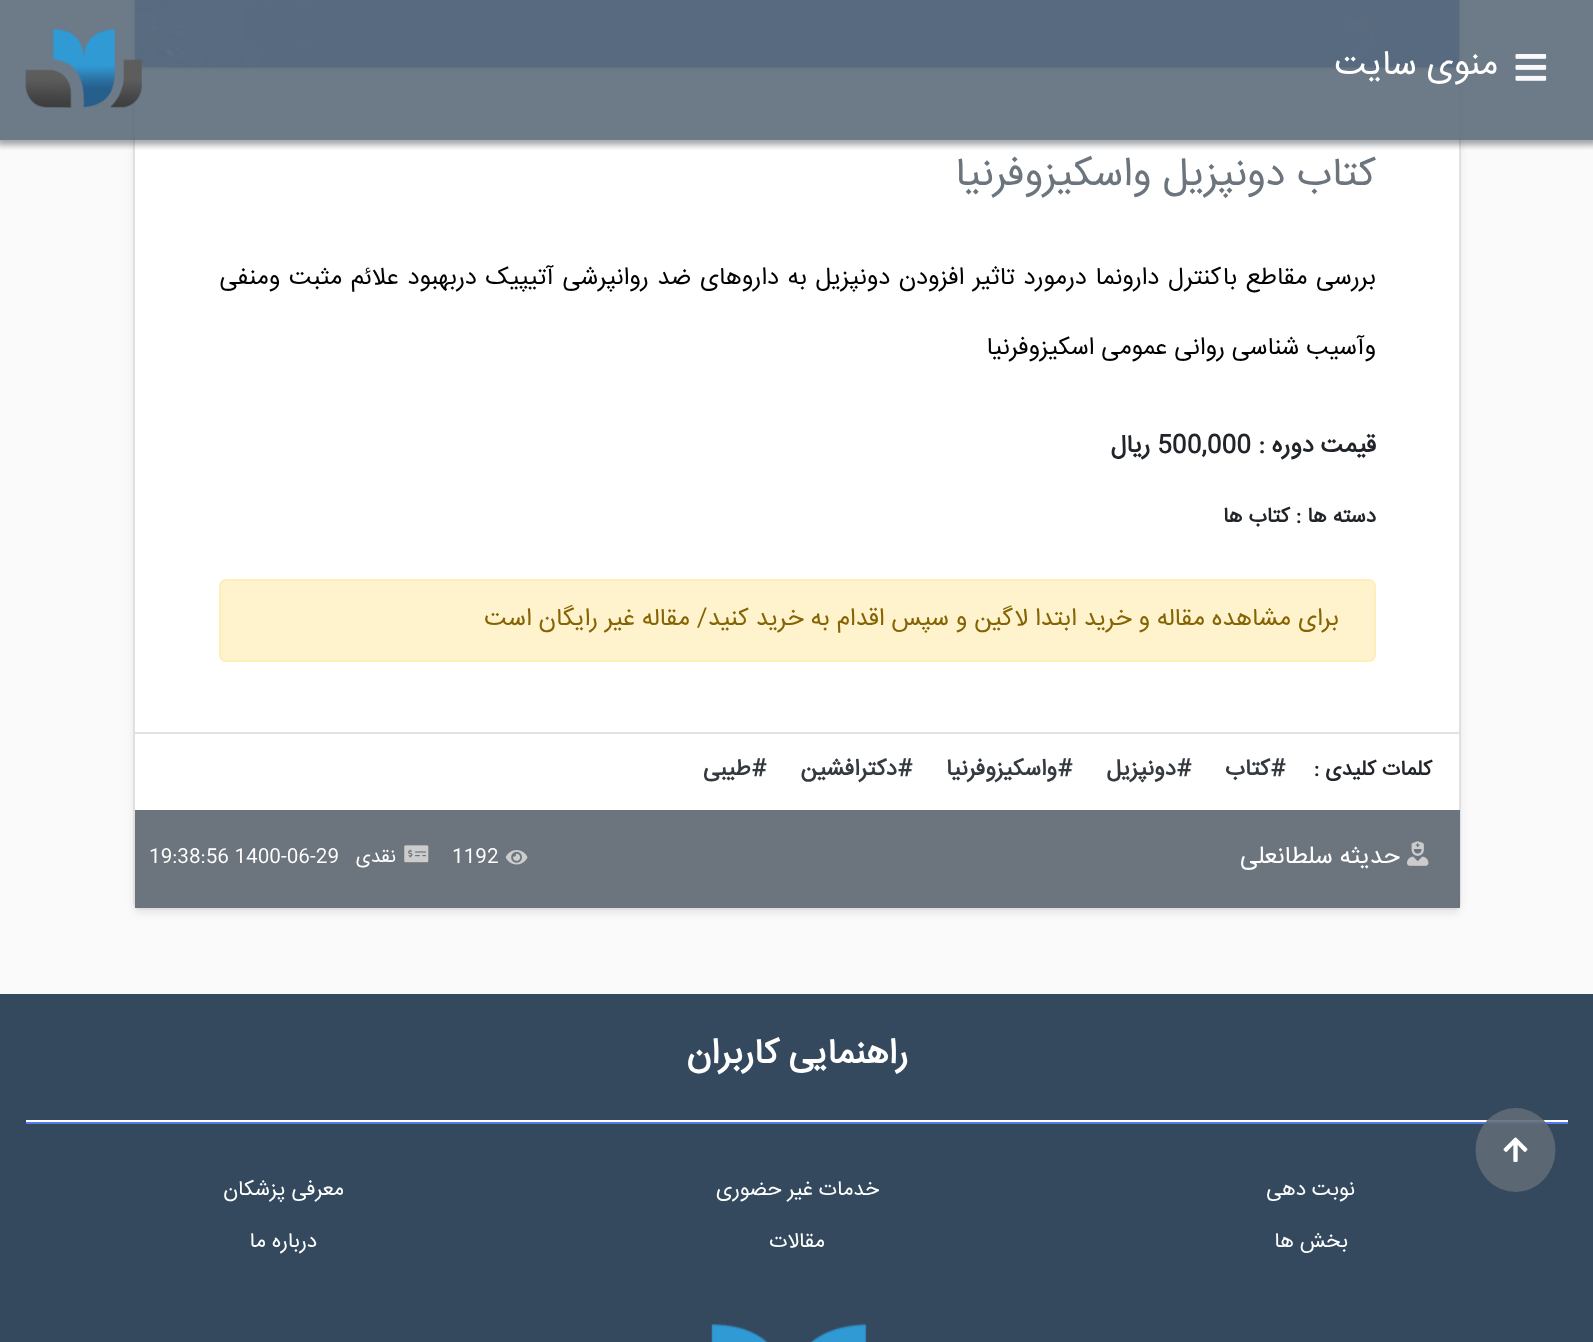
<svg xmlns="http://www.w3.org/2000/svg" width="1593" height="1342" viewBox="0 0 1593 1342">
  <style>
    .t1 { font: 35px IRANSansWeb; direction: rtl; fill: #fff; }
    .t2 { font: 40.25px IRANSansWeb; direction: rtl; fill: #6c757d; }
    .t3 { font: 24.5px IRANSansWeb; direction: rtl; fill: #000; }
    .t4 { font: bold 24.5px IRANSansWeb; direction: rtl; fill: #212529; }
    .t5 { font: bold 24.5px IRANSansWeb; fill: #212529; }
    .t6 { font: bold 21px IRANSansWeb; direction: rtl; fill: #212529; }
    .t7 { font: 24.5px IRANSansWeb; direction: rtl; fill: #856404; }
    .t8 { font: bold 22.75px IRANSansWeb; direction: rtl; fill: #343a40; }
    .t9 { font: 24.5px IRANSansWeb; direction: rtl; fill: #fff; }
    .t10 { font: 19.25px IRANSansWeb; fill: #fff; }
    .t11 { font: 19.25px IRANSansWeb; direction: rtl; fill: #fff; }
    .t12 { font: bold 35px IRANSansWeb; direction: rtl; fill: #fff; }
    .t13 { font: 21px IRANSansWeb; direction: rtl; fill: #fff; }
  </style>
  <defs>
    <clipPath id="clip1"><rect x="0" y="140" width="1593" height="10"/></clipPath>
  </defs>
  <rect width="100%" height="100%" fill="#fafafa"/>
  <rect x="133" y="-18" width="1328" height="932" rx="7" fill="#00000012" filter="blur(3.5px)"/>
  <rect x="133" y="-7" width="1328" height="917" rx="7" fill="#fff"/>
  <rect x="134" y="-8" width="1326" height="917" rx="6" fill="none" stroke="#0000001f" stroke-width="2"/>
  <rect x="141" y="0" width="1319" height="70" fill="#00000008"/>
  <rect x="135" y="68" width="1325" height="2" fill="#0000001f"/>
  <image x="134" y="0" width="1326" height="68" href="images/3.png"/>
  <g clip-path="url(#clip1)">
    <rect x="-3" y="-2" width="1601" height="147" fill="#464f5780" filter="blur(3px)"/>
  </g>
  <rect x="0" y="0" width="1593" height="140" fill="#5d6c7ae6"/>
  <image x="1515" y="54" width="32" height="27" href="images/1.png"/>
  <text x="1498" y="74" class="t1">منوی سایت</text>
  <image x="25" y="29" width="117" height="79" href="images/2.png"/>
  <text x="1376" y="185" class="t2">کتاب دونپزیل واسکیزوفرنیا</text>
  <text x="1376" y="284" word-spacing="1.75" class="t3">بررسی مقاطع باکنترل دارونما درمورد تاثیر افزودن دونپزیل به داروهای ضد روانپرشی آتیپیک دربهبود علائم مثبت ومنفی</text>
  <text x="1376" y="354" class="t3">وآسیب شناسی روانی عمومی اسکیزوفرنیا</text>
  <text x="1376" y="452" class="t4">قیمت دوره :</text>
  <text x="1157" y="452" class="t5">500,000</text>
  <text x="1150" y="452" class="t4">ریال</text>
  <text x="1376" y="522" class="t6">دسته ها : کتاب ها</text>
  <rect x="220" y="580" width="1155" height="81" rx="6" fill="#fff3cd" stroke="#ffeeba" stroke-width="2"/>
  <text x="1339" y="625" class="t7">برای مشاهده مقاله و خرید ابتدا لاگین و سپس اقدام به خرید کنید/ مقاله غیر</text>
  <text x="598" y="625" class="t7">رایگان است</text>
  <rect x="135" y="732" width="1325" height="2" fill="#dee2e6"/>
  <text x="1432" y="775" class="t6">کلمات کلیدی :</text>
  <text x="1285" y="775" class="t8">#کتاب</text>
  <text x="1191" y="775" class="t8">#دونپزیل</text>
  <text x="1072" y="775" class="t8">#واسکیزوفرنیا</text>
  <text x="912" y="775" class="t8">#دکترافشین</text>
  <text x="766" y="775" class="t8">#طیبی</text>
  <rect x="135" y="810" width="1325" height="98" fill="#6c757d"/>
  <image x="1407" y="841" width="22" height="25" href="images/4.png"/>
  <text x="1400" y="863" class="t9">حدیثه سلطانعلی</text>
  <image x="505" y="850" width="23" height="15" href="images/5.png"/>
  <text x="452" y="862" class="t10">1192</text>
  <image x="404" y="845" width="25" height="18" href="images/6.png"/>
  <text x="396" y="862" class="t11">نقدی</text>
  <text x="149" y="862" class="t10">19:38:56 1400-06-29</text>
  <rect x="0" y="994" width="1593" height="348" fill="#34495e"/>
  <path d="M26 996V1124H1568V1122H26Z" fill="#537ae6"/>
  <rect x="26" y="1120" width="1542" height="2" fill="#fff"/>
  <ellipse cx="1515.5" cy="1150" rx="40" ry="42" fill="#5f6a75e6"/>
  <image x="1503" y="1137" width="25" height="25" href="images/7.png"/>
  <text x="908" y="1063" class="t12">راهنمایی</text>
  <text x="779" y="1063" class="t12">کاربران</text>
  <text x="1355" y="1195" class="t13">نوبت دهی</text>
  <text x="879" y="1195" class="t13">خدمات</text>
  <text x="813" y="1195" class="t13">غیر حضوری</text>
  <text x="344" y="1195" class="t13">معرفی پزشکان</text>
  <text x="1348" y="1247" class="t13">بخش ها</text>
  <text x="825" y="1247" class="t13">مقالات</text>
  <text x="317" y="1247" class="t13">درباره ما</text>
  <image x="711" y="1324" width="156" height="18" href="images/8.png"/>
</svg>
